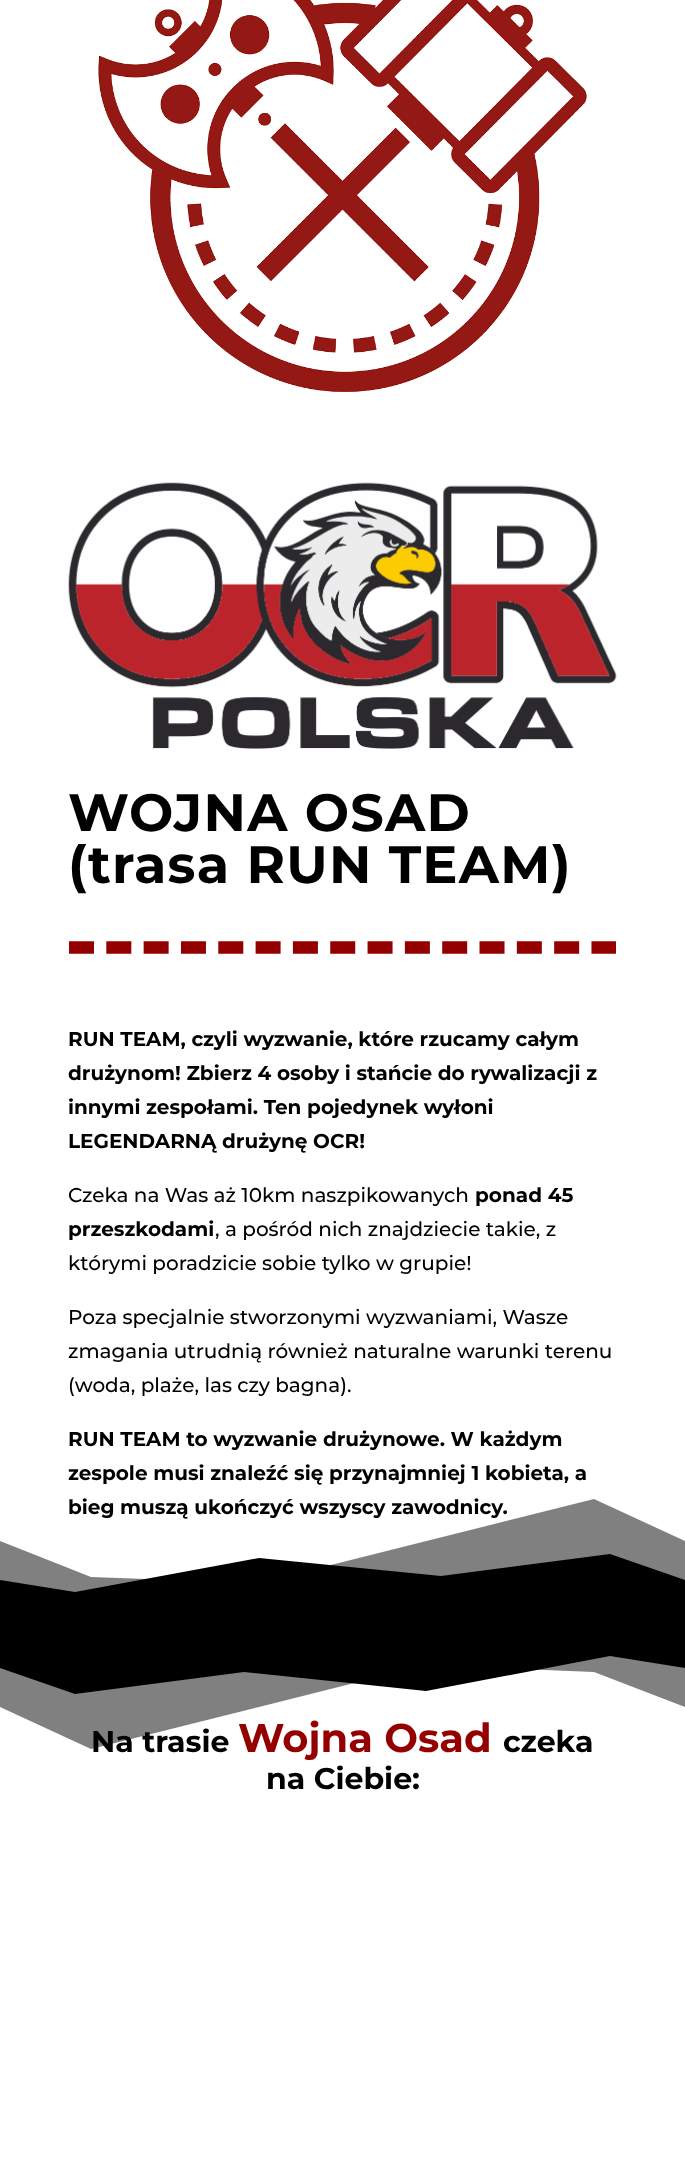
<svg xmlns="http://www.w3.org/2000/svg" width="685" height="2164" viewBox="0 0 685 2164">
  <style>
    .t1 { font: bold 52.5px Montserrat; letter-spacing: 1.25px; fill: #000; }
    .t2 { font: bold 20px Montserrat; fill: #000; }
    .t3 { font: 500 20px Montserrat; fill: #000; }
    .t4 { font: bold 30px Montserrat; fill: #000; }
    .t5 { font: bold 40px Montserrat; fill: #940000; }
  </style>
  <rect width="100%" height="100%" fill="#fff"/>
  <image x="98" y="0" width="489" height="392" href="images/1.png"/>
  <image x="68" y="482" width="549" height="267" href="images/2.png"/>
  <text x="68" y="831" class="t1">WOJNA OSAD</text>
  <text x="68" y="883" class="t1">(trasa RUN TEAM)</text>
  <path d="M69 947.5H616" fill="none" stroke="#940000" stroke-width="12.5" stroke-dasharray="25 12.32"/>
  <text x="68" y="1046" class="t2">RUN TEAM, czyli wyzwanie, które rzucamy całym</text>
  <text x="68" y="1080" class="t2">drużynom! Zbierz 4 osoby i stańcie do rywalizacji z</text>
  <text x="68" y="1114" class="t2">innymi zespołami. Ten pojedynek wyłoni</text>
  <text x="68" y="1148" class="t2">LEGENDARNĄ drużynę OCR!</text>
  <text x="68" y="1202" class="t3">Czeka na Was aż 10km naszpikowanych</text>
  <text x="475" y="1202" class="t2">ponad 45</text>
  <text x="68" y="1236" class="t2">przeszkodami</text>
  <text x="215" y="1236" class="t3">, a pośród nich znajdziecie takie, z</text>
  <text x="68" y="1270" class="t3">którymi poradzicie sobie tylko w grupie!</text>
  <text x="68" y="1324" class="t3">Poza specjalnie stworzonymi wyzwaniami, Wasze</text>
  <text x="68" y="1358" class="t3">zmagania utrudnią również naturalne warunki terenu</text>
  <text x="68" y="1392" class="t3">(woda, plaże, las czy bagna).</text>
  <text x="68" y="1446" class="t2">RUN TEAM to wyzwanie drużynowe. W każdym</text>
  <text x="68" y="1480" class="t2">zespole musi znaleźć się przynajmniej 1 kobieta, a</text>
  <path d="M685 1541L594 1499L259 1583L91 1577L0 1541V1624H685Z" fill="#808080"/>
  <text x="68" y="1514" class="t2">bieg muszą ukończyć wszyscy zawodnicy.</text>
  <path d="M685 1580L610 1554L441 1576L259 1558L75 1592L0 1580V1624H685Z" fill="#000"/>
  <path d="M0 1707L91 1749L426 1665L594 1672L685 1707V1624H0Z" fill="#808080"/>
  <path d="M0 1668L75 1694L244 1672L426 1691L610 1656L685 1668V1624H0Z" fill="#000"/>
  <text x="91" y="1752" class="t4">Na trasie</text>
  <text x="238" y="1752" class="t5">Wojna Osad</text>
  <text x="503" y="1752" class="t4">czeka</text>
  <text x="266" y="1789" class="t4">na Ciebie:</text>
</svg>
